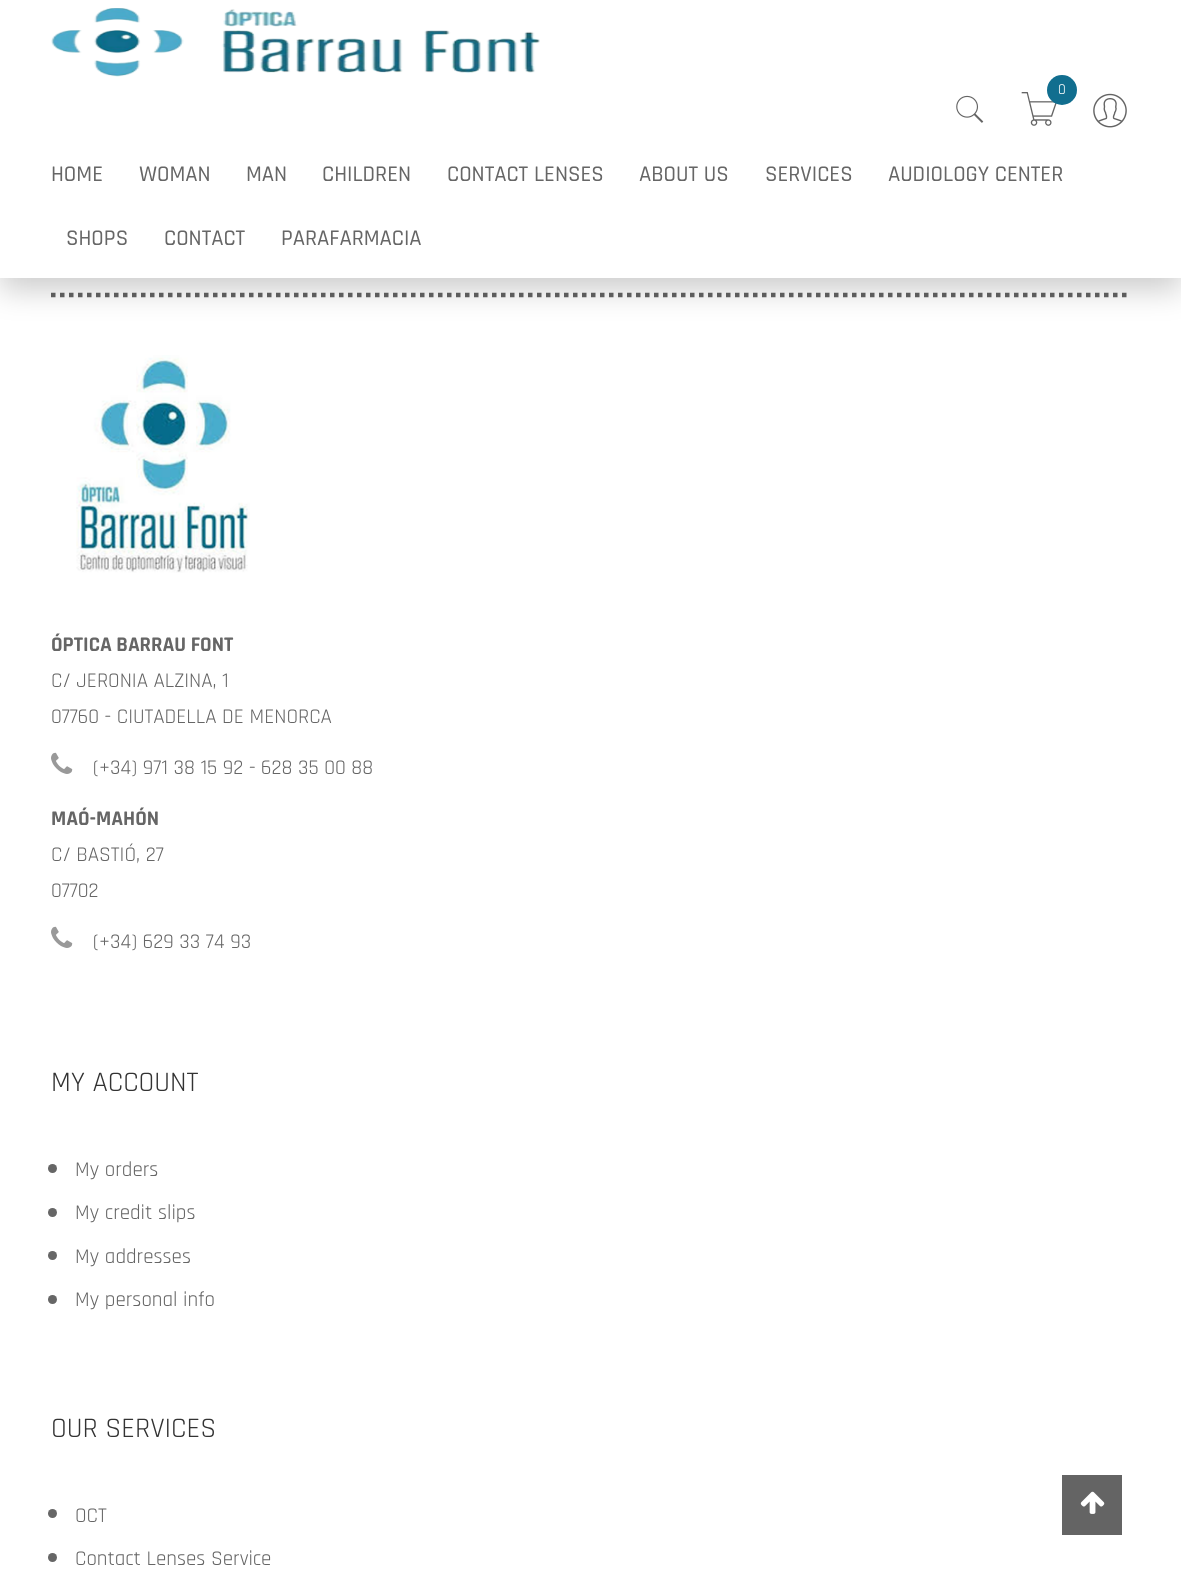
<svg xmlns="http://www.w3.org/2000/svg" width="1181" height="1579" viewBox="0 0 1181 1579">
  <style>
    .t1 { font: 15px Rajdhani; fill: #fff; }
    .t2 { font: 500 22.5px Rajdhani; fill: #666; }
    .t3 { font: bold 21px Rajdhani; fill: #666; }
    .t4 { font: 21px Rajdhani; fill: #666; }
    .t5 { font: 28.5px Rajdhani; fill: #333; }
  </style>
  <rect width="100%" height="100%" fill="#fff"/>
  <path d="M51 295H1131" fill="none" stroke="#646464" stroke-width="4.5" stroke-dasharray="4.5 4.5"/>
  <rect x="0" y="12" width="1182" height="278" fill="#00000033" filter="blur(15px)"/>
  <rect x="0" y="0" width="1181" height="278" fill="#fff"/>
  <image x="51" y="8" width="489" height="69" href="images/1.png"/>
  <image x="1021" y="92" width="36" height="34" href="images/2.png"/>
  <circle cx="1062" cy="90" r="15" fill="#116e8f"/>
  <text x="1058" y="94" class="t1">0</text>
  <image x="956" y="95" width="28" height="28" href="images/3.png"/>
  <image x="1093" y="93" width="34" height="35" href="images/4.png"/>
  <text x="51" y="181" class="t2">HOME</text>
  <text x="139" y="181" class="t2">WOMAN</text>
  <text x="246" y="181" class="t2">MAN</text>
  <text x="322" y="181" class="t2">CHILDREN</text>
  <text x="447" y="181" class="t2">CONTACT LENSES</text>
  <text x="639" y="181" class="t2">ABOUT US</text>
  <text x="765" y="181" class="t2">SERVICES</text>
  <text x="888" y="181" class="t2">AUDIOLOGY CENTER</text>
  <text x="66" y="245" class="t2">SHOPS</text>
  <text x="164" y="245" class="t2">CONTACT</text>
  <text x="281" y="245" class="t2">PARAFARMACIA</text>
  <image x="76" y="355" width="174" height="218" href="images/5.png"/>
  <text x="51" y="651" class="t3">ÓPTICA BARRAU FONT</text>
  <text x="51" y="687" class="t4">C/ JERONIA ALZINA, 1</text>
  <text x="51" y="723" class="t4">07760 - CIUTADELLA DE MENORCA</text>
  <image x="51" y="752" width="22" height="22" href="images/6.png"/>
  <text x="93" y="774" class="t4">(+34) 971 38 15 92 - 628 35 00 88</text>
  <text x="51" y="825" class="t3">MAÓ-MAHÓN</text>
  <text x="51" y="861" class="t4">C/ BASTIÓ, 27</text>
  <text x="51" y="897" class="t4">07702</text>
  <image x="51" y="926" width="22" height="22" href="images/6.png"/>
  <text x="93" y="948" class="t4">(+34) 629 33 74 93</text>
  <text x="51" y="1091" class="t5">MY ACCOUNT</text>
  <circle cx="52.5" cy="1168.5" r="4.5" fill="#666"/>
  <text x="75" y="1176" class="t4">My orders</text>
  <circle cx="52.5" cy="1212.5" r="4.5" fill="#666"/>
  <text x="75" y="1219" class="t4">My credit slips</text>
  <circle cx="52.5" cy="1255.5" r="4.5" fill="#666"/>
  <text x="75" y="1263" class="t4">My addresses</text>
  <circle cx="52.5" cy="1299.5" r="4.5" fill="#666"/>
  <text x="75" y="1306" class="t4">My personal info</text>
  <text x="51" y="1437" class="t5">OUR SERVICES</text>
  <circle cx="52.5" cy="1513.5" r="4.5" fill="#666"/>
  <text x="75" y="1522" class="t4">OCT</text>
  <circle cx="52.5" cy="1557.5" r="4.5" fill="#666"/>
  <text x="75" y="1565" class="t4">Contact Lenses Service</text>
  <rect x="1062" y="1475" width="60" height="60" fill="#646464"/>
  <image x="1080" y="1491" width="25" height="23" href="images/7.png"/>
</svg>
